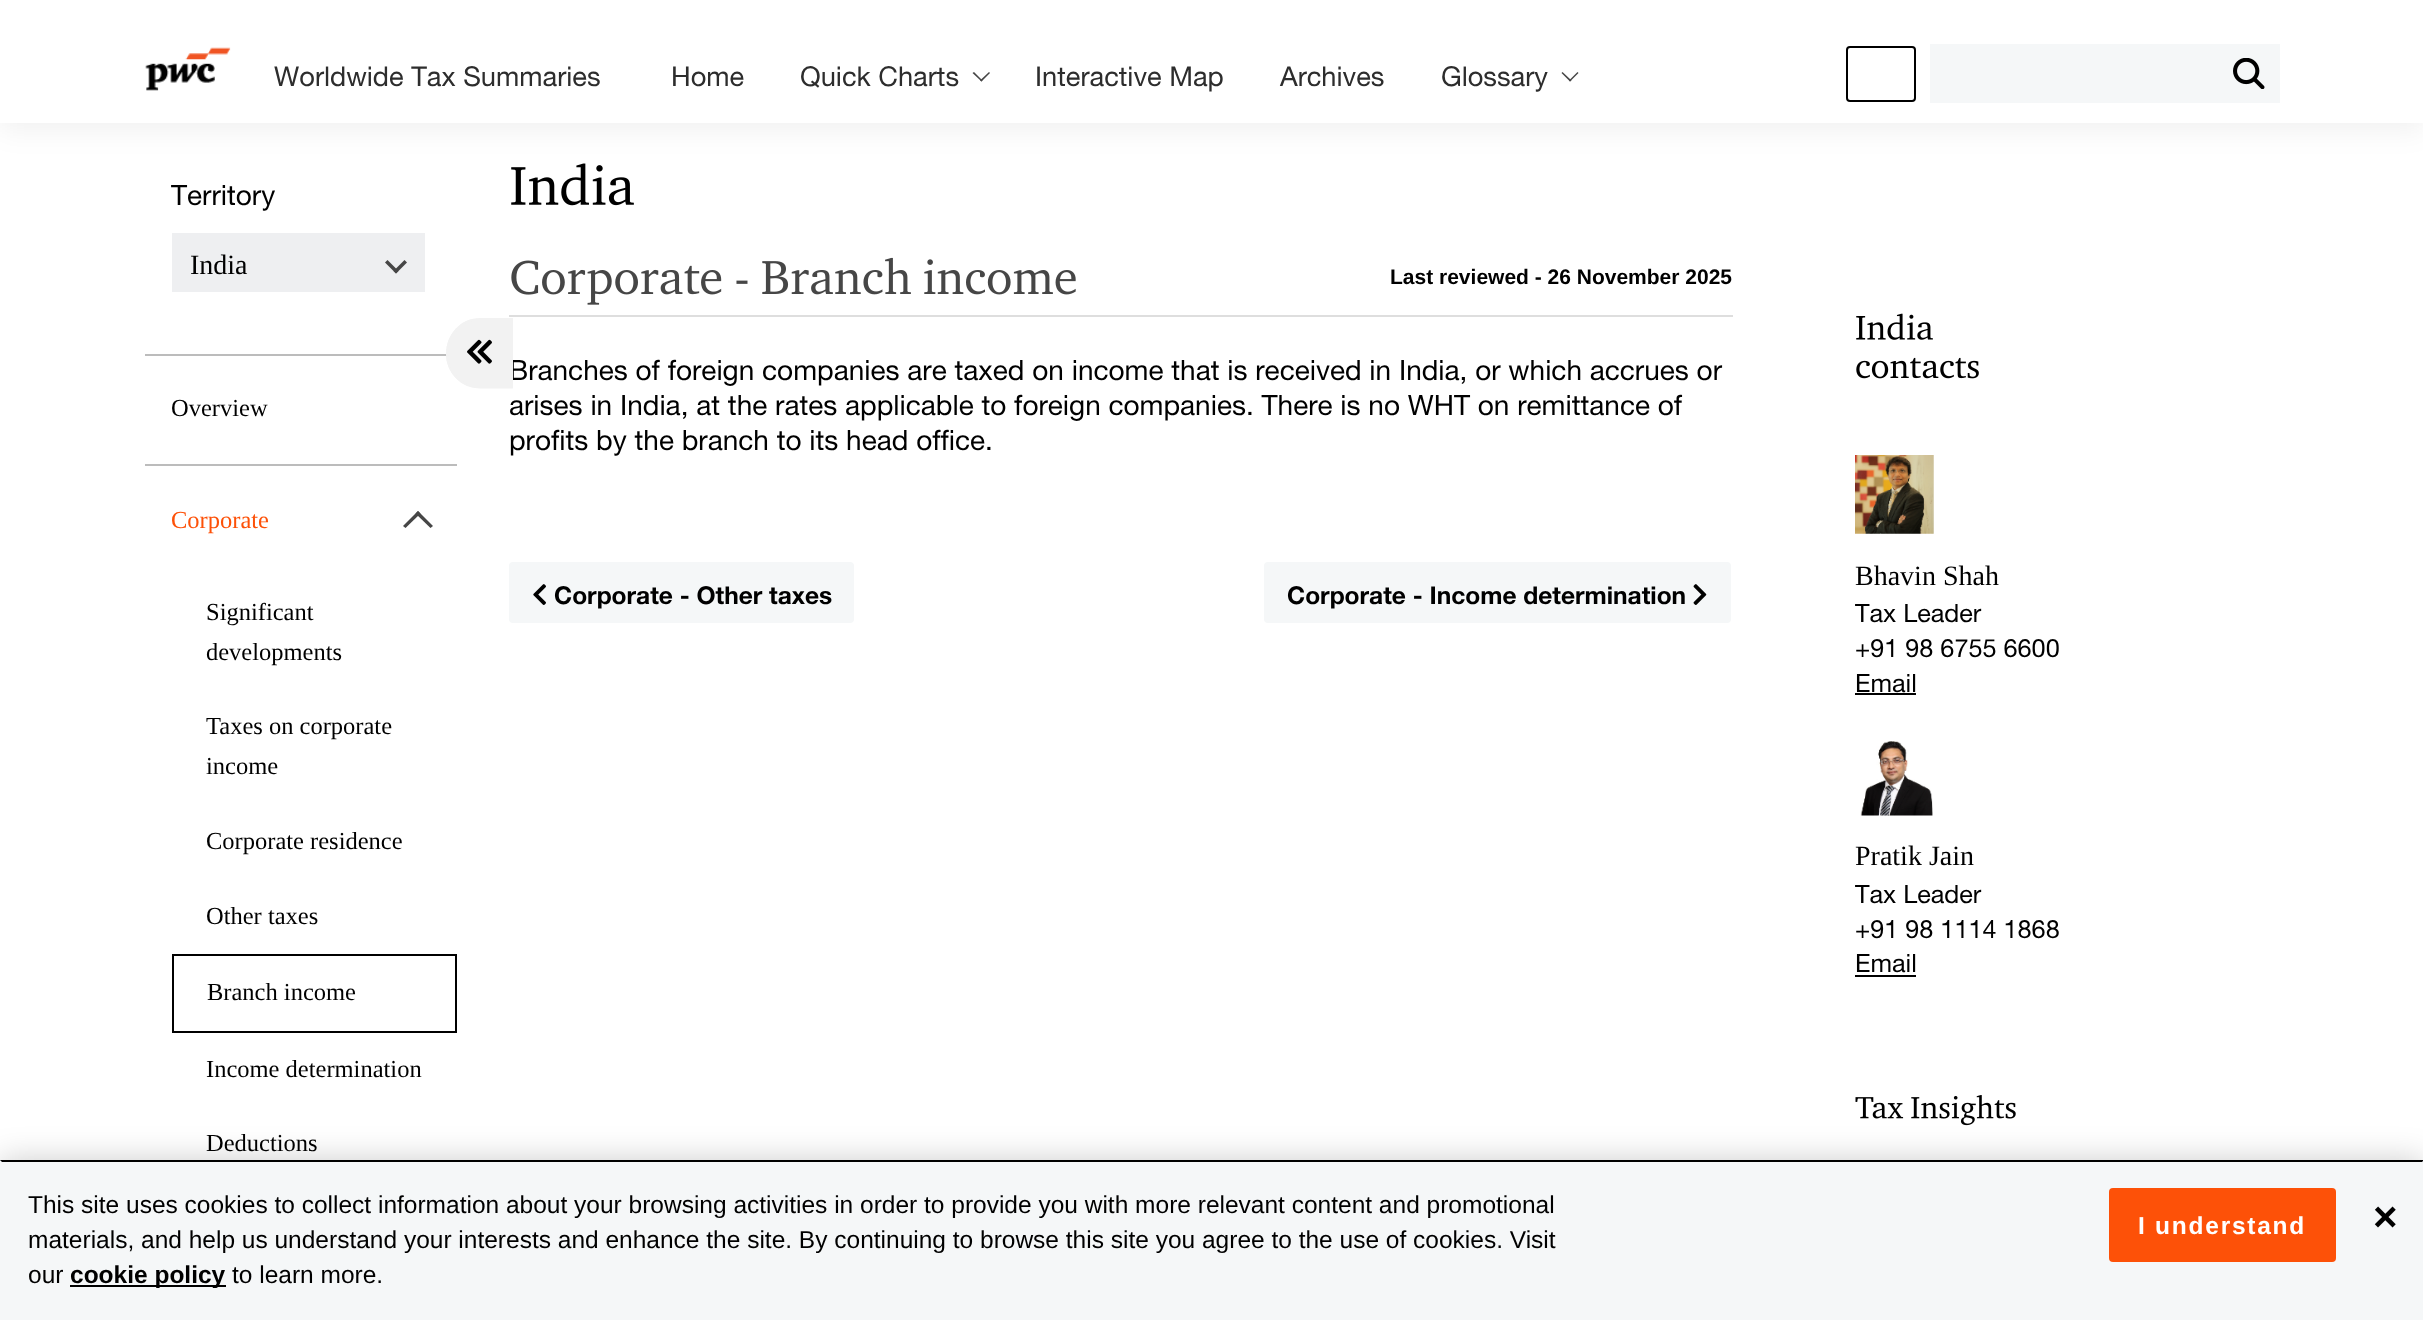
<svg xmlns="http://www.w3.org/2000/svg" width="2423" height="1320" viewBox="0 0 2423 1320">
  <style>
    .t1 { font: 27.25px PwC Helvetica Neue; fill: #2d2d2d; }
    .t2 { font: 28px PwC Helvetica Neue; fill: #000; }
    .t3 { font: 28px Liberation Serif; fill: #000; }
    .t4 { font: 24.5px Liberation Serif; fill: #000; }
    .t5 { font: 24.5px Liberation Serif; fill: #fd5108; }
    .t6 { font: bold 21px Liberation Sans; fill: #000; }
    .t7 { font: bold 24.5px PwC Helvetica Neue; fill: #000; }
    .t8 { font: 25.25px PwC Helvetica Neue; fill: #000; }
    .t9 { font: 24.5px Liberation Sans; fill: #000; }
    .t10 { font: bold 24.5px Liberation Sans; fill: #000; }
    .t11 { font: bold 24.5px Liberation Sans; letter-spacing: 1.75px; fill: #fff; }
    .t12 { font: bold 42px Liberation Sans; fill: #000; }
  </style>
  <rect width="100%" height="100%" fill="#fff"/>
  <rect x="0" y="7" width="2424" height="123" fill="#0000000f" filter="blur(14px)"/>
  <rect x="0" y="0" width="2423" height="123" fill="#fff"/>
  <image x="145" y="47" width="86" height="44" href="images/1.png"/>
  <text x="274" y="86" class="t1">Worldwide Tax Summaries</text>
  <text x="671" y="86" class="t1">Home</text>
  <text x="800" y="86" class="t1">Quick Charts</text>
  <path d="M990 73L981.5 81.5L980 80.5L989 72Z" fill="#464646"/>
  <path d="M982.5 80.5L981.5 81.5L972.5 73L974 72Z" fill="#464646"/>
  <text x="1035" y="86" class="t1">Interactive Map</text>
  <text x="1280" y="86" class="t1">Archives</text>
  <text x="1441" y="86" class="t1">Glossary</text>
  <path d="M1578.5 73L1570 81.5L1569 80.5L1577.5 72Z" fill="#464646"/>
  <path d="M1571.5 80.5L1570 81.5L1561.5 73L1562.5 72Z" fill="#464646"/>
  <rect x="1847" y="47" width="68" height="54" rx="3" fill="none" stroke="#000" stroke-width="2"/>
  <rect x="1930" y="44" width="350" height="59" fill="#f5f7f8"/>
  <image x="2233" y="58" width="32" height="31" href="images/2.png"/>
  <rect x="145" y="354" width="302" height="2" fill="#bcbcbc"/>
  <text x="171" y="205" class="t2">Territory</text>
  <rect x="172" y="233" width="253" height="59" fill="#eeeff1"/>
  <text x="190" y="274" class="t3">India</text>
  <path d="M407 262.5L396 273.5L393.5 271L404.5 260Z" fill="#464646"/>
  <path d="M398.5 271L396 273.5L385 262.5L387.5 260Z" fill="#464646"/>
  <rect x="145" y="464" width="312" height="2" fill="#bcbcbc"/>
  <text x="171" y="416" class="t4">Overview</text>
  <text x="171" y="528" class="t5">Corporate</text>
  <path d="M403 526L418 511L420.5 513.5L405.5 528Z" fill="#464646"/>
  <path d="M415.5 513.5L418 511L433 526L430.5 528Z" fill="#464646"/>
  <text x="206" y="620" class="t4">Significant</text>
  <text x="206" y="660" class="t4">developments</text>
  <text x="206" y="734" class="t4">Taxes on corporate</text>
  <text x="206" y="774" class="t4">income</text>
  <text x="206" y="849" class="t4">Corporate residence</text>
  <text x="206" y="924" class="t4">Other taxes</text>
  <rect x="173" y="955" width="283" height="77" fill="none" stroke="#000" stroke-width="2"/>
  <text x="207" y="1000" class="t4">Branch income</text>
  <text x="206" y="1077" class="t4">Income determination</text>
  <text x="206" y="1151" class="t4">Deductions</text>
  <text x="509" y="380" class="t2">Branches of foreign companies are taxed on income that is received in India, or which accrues or</text>
  <path d="M480 318H513V388H480C461 388 446 373 446 354C446 334 461 318 480 318Z" fill="#f2f2f2"/>
  <path d="M479.5 319.5H512V387.5H479.5C461.5 387.5 447 372.5 447 353.5C447 334.5 461.5 319.5 479.5 319.5Z" fill="none" stroke="#f2f2f2" stroke-width="1.8"/>
  <image x="467" y="339" width="25" height="25" href="images/3.png"/>
  <image x="511" y="163" width="123" height="43" href="images/4.png"/>
  <rect x="509" y="315" width="1224" height="2" fill="#dedede"/>
  <image x="511" y="257" width="565" height="48" href="images/5.png"/>
  <text x="1390" y="284" class="t6">Last reviewed - 26 November 2025</text>
  <text x="509" y="415" class="t2">arises in India, at the rates applicable to foreign companies. There is no WHT on remittance of</text>
  <text x="509" y="450" class="t2">profits by the branch to its head office.</text>
  <rect x="509" y="562" width="345" height="61" rx="4" fill="#f5f7f8"/>
  <image x="533" y="584" width="13" height="21" href="images/6.png"/>
  <text x="554" y="604" class="t7">Corporate - Other taxes</text>
  <rect x="1264" y="562" width="467" height="61" rx="4" fill="#f5f7f8"/>
  <text x="1287" y="604" class="t7">Corporate - Income determination</text>
  <image x="1693" y="584" width="14" height="21" href="images/7.png"/>
  <image x="1856" y="313" width="77" height="27" href="images/8.png"/>
  <image x="1856" y="357" width="123" height="22" href="images/9.png"/>
  <image x="1855" y="455" width="79" height="79" href="images/10.png"/>
  <text x="1855" y="585" class="t3">Bhavin Shah</text>
  <text x="1855" y="622" class="t8">Tax Leader</text>
  <text x="1855" y="657" class="t8">+91 98 6755 6600</text>
  <text x="1855" y="692" class="t8">Email</text>
  <rect x="1855" y="693" width="61" height="2" fill="#000"/>
  <image x="1860" y="741" width="73" height="75" href="images/11.png"/>
  <text x="1855" y="865" class="t3">Pratik Jain</text>
  <text x="1855" y="903" class="t8">Tax Leader</text>
  <text x="1855" y="938" class="t8">+91 98 1114 1868</text>
  <text x="1855" y="972" class="t8">Email</text>
  <rect x="1855" y="975" width="61" height="2" fill="#000"/>
  <image x="1855" y="1095" width="161" height="31" href="images/12.png"/>
  <rect x="0" y="1160" width="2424" height="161" fill="#00000033" filter="blur(16px)"/>
  <rect x="0" y="1160" width="2423" height="160" fill="#f5f7f8"/>
  <path d="M0 1160H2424L2422 1162H2Z" fill="#000"/>
  <text x="28" y="1213" class="t9">This site uses cookies to collect information about your browsing activities in order to provide you with more relevant content and promotional</text>
  <text x="28" y="1248" class="t9">materials, and help us understand your interests and enhance the site. By continuing to browse this site you agree to the use of cookies. Visit</text>
  <text x="28" y="1283" class="t9">our</text>
  <rect x="70" y="1285" width="156" height="2" fill="#000"/>
  <text x="70" y="1283" class="t10">cookie policy</text>
  <text x="232" y="1283" class="t9">to learn more.</text>
  <rect x="2109" y="1188" width="227" height="74" rx="4" fill="#fd5108"/>
  <text x="2138" y="1234" class="t11">I understand</text>
  <text x="2373" y="1231" class="t12">×</text>
</svg>
